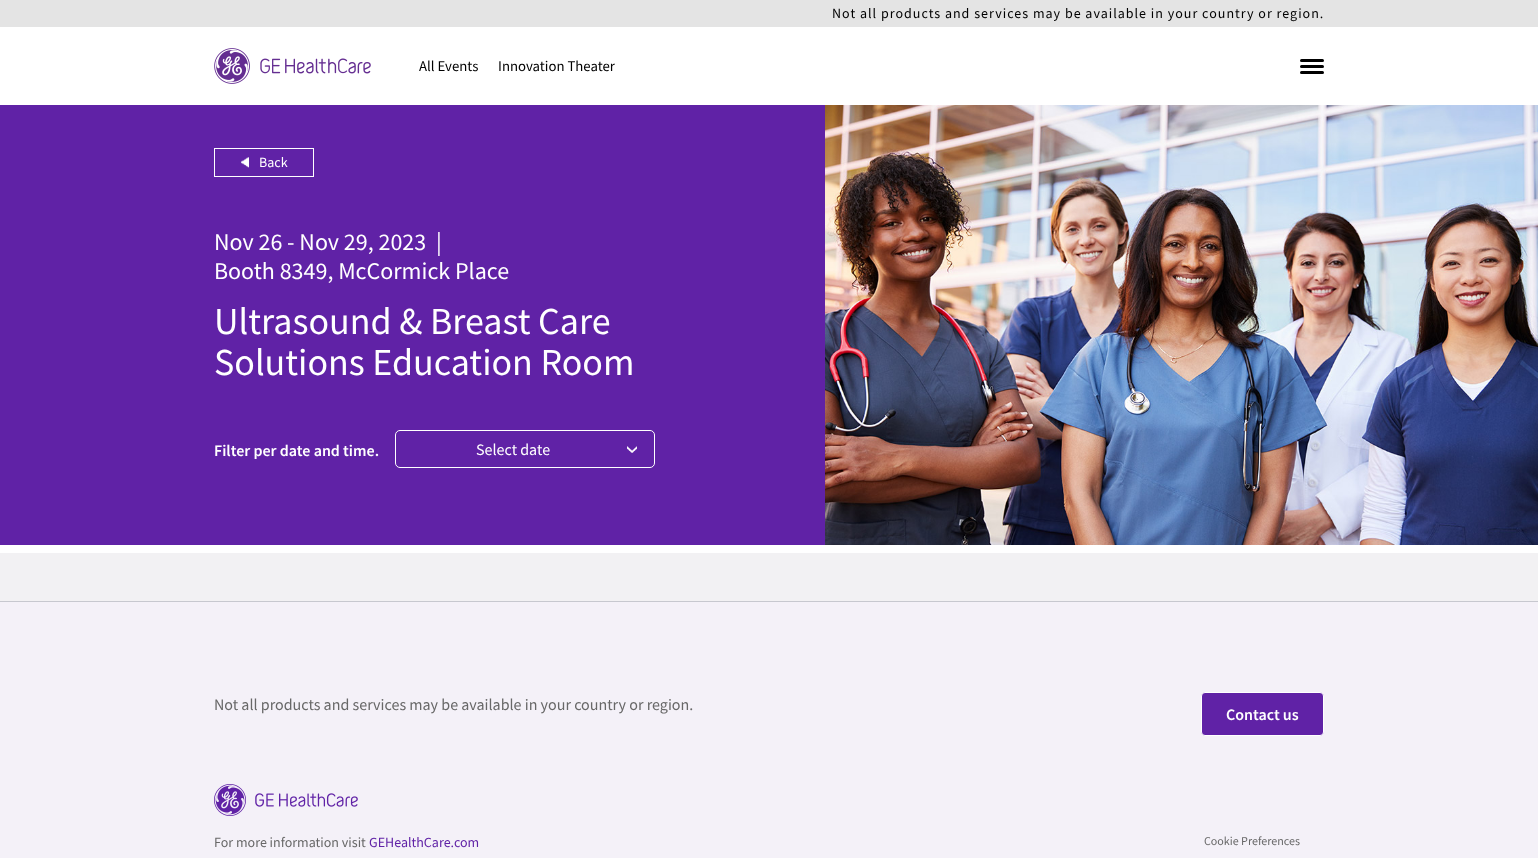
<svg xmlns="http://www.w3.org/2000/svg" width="1538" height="858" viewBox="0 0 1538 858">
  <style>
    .t1 { font: 14px Source Sans Pro; letter-spacing: 1px; fill: #000; }
    .t2 { font: 14.75px Source Sans Pro; fill: #000; }
    .t3 { font: 14px Source Sans Pro; fill: #fff; }
    .t4 { font: 24px Source Sans Pro; fill: #fff; }
    .t5 { font: 38px Source Sans Pro; fill: #fff; }
    .t6 { font: 600 16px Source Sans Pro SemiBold; fill: #fff; }
    .t7 { font: 16px Source Sans Pro; fill: #fff; }
    .t8 { font: 16px Source Sans Pro; fill: #686868; }
    .t9 { font: 14px Source Sans Pro; fill: #686868; }
    .t10 { font: 14px Source Sans Pro; fill: #6022a6; }
    .t11 { font: 12px Source Sans Pro; fill: #686868; }
  </style>
  <rect width="100%" height="100%" fill="#fff"/>
  <rect x="0" y="0" width="1538" height="27" fill="#e4e4e4"/>
  <text x="832" y="18" class="t1">Not all products and services may be available in your country or region.</text>
  <image x="214" y="48" width="157" height="36" href="images/1.png"/>
  <text x="419" y="71" class="t2">All Events</text>
  <text x="498" y="71" class="t2">Innovation Theater</text>
  <rect x="1300" y="59" width="24" height="3" rx="1.5" fill="#000"/>
  <rect x="1300" y="65" width="24" height="3" rx="1.5" fill="#000"/>
  <rect x="1300" y="71" width="24" height="3" rx="1.5" fill="#000"/>
  <rect x="0" y="105" width="825" height="440" fill="#6022a6"/>
  <rect x="214.5" y="148.5" width="99" height="28" fill="none" stroke="#fff"/>
  <image x="241" y="157" width="8" height="11" href="images/2.png"/>
  <text x="259" y="167" class="t3">Back</text>
  <text x="214" y="250" class="t4">Nov 26 - Nov 29, 2023</text>
  <text x="436" y="250" class="t4">|</text>
  <text x="214" y="279" class="t4">Booth 8349, McCormick Place</text>
  <text x="214" y="334" class="t5">Ultrasound &amp; Breast Care</text>
  <text x="214" y="375" class="t5">Solutions Education Room</text>
  <text x="214" y="456" class="t6">Filter per date and time.</text>
  <image x="627" y="446" width="10" height="7" href="images/3.png"/>
  <rect x="395.5" y="430.5" width="259" height="37" rx="4.5" fill="none" stroke="#fff"/>
  <text x="476" y="455" class="t7">Select date</text>
  <image x="825" y="105" width="713" height="440" href="images/4.png"/>
  <rect x="0" y="553" width="1538" height="48" fill="#f2f1f3"/>
  <rect x="0" y="602" width="1538" height="256" fill="#f4f1f8"/>
  <rect x="0" y="601" width="1538" height="1" fill="#c7c8cf"/>
  <text x="214" y="710" class="t8">Not all products and services may be available in your country or region.</text>
  <rect x="1201.5" y="692.5" width="122" height="43" rx="3.5" fill="#6022a6" stroke="#fff"/>
  <text x="1226" y="720" class="t6">Contact us</text>
  <image x="214" y="784" width="144" height="32" href="images/5.png"/>
  <text x="214" y="847" class="t9">For more information visit</text>
  <text x="369" y="847" class="t10">GEHealthCare.com</text>
  <text x="1204" y="845" class="t11">Cookie Preferences</text>
</svg>
